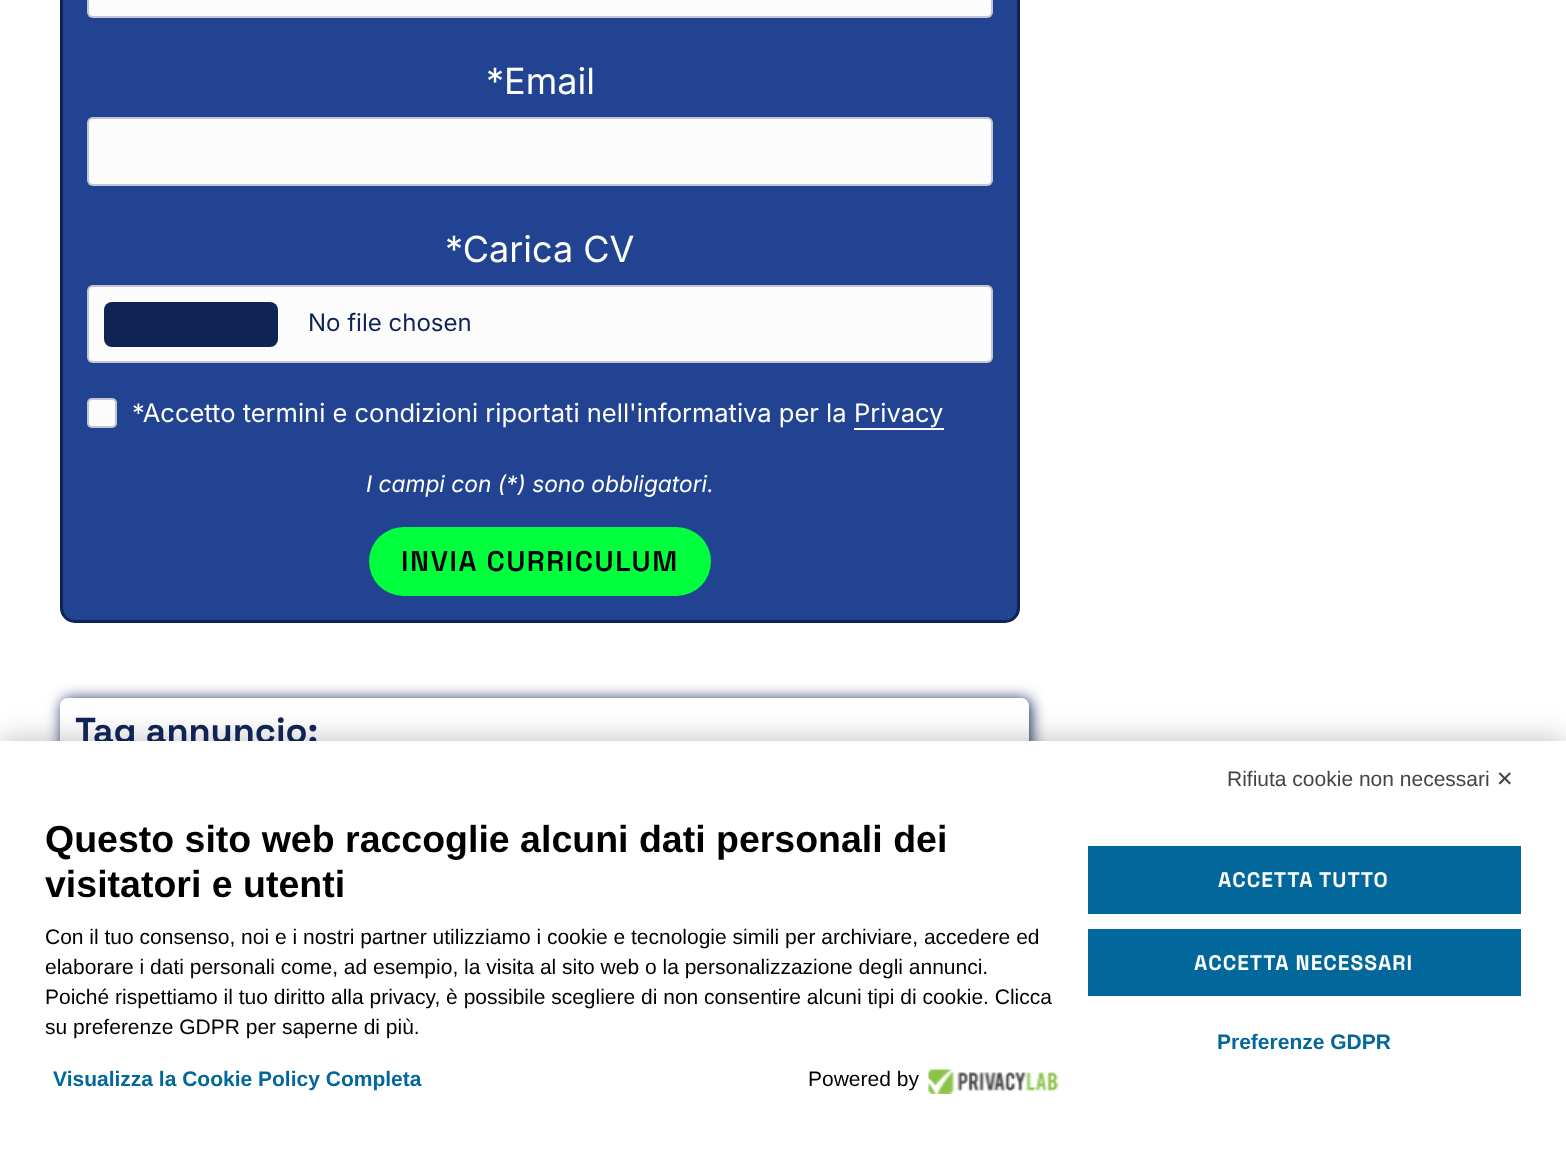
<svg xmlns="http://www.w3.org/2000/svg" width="1566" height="1163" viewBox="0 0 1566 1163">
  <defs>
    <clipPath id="clip1"><path d="M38 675H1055V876H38ZM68 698H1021C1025.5 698 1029 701.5 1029 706V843C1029 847.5 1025.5 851 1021 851H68C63.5 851 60 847.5 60 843V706C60 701.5 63.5 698 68 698Z" clip-rule="evenodd"/></clipPath>
  </defs>
  <rect width="100%" height="100%" fill="#fff"/>
  <rect x="61.5" y="-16.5" width="957" height="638" rx="13.5" fill="#214392" stroke="#0f2355" stroke-width="3"/>
  <rect x="87" y="-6" width="906" height="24" rx="6" fill="#fcfcfc"/>
  <rect x="88" y="-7" width="904" height="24" rx="5" fill="none" stroke="#0f235540" stroke-width="2"/>
  <rect x="87" y="117" width="906" height="69" rx="6" fill="#fcfcfc"/>
  <rect x="88" y="118" width="904" height="67" rx="5" fill="none" stroke="#0f235540" stroke-width="2"/>
  <rect x="87" y="285" width="906" height="78" rx="6" fill="#fcfcfc"/>
  <rect x="88" y="286" width="904" height="76" rx="5" fill="none" stroke="#0f235540" stroke-width="2"/>
  <rect x="104" y="302" width="174" height="45" rx="8" fill="#0f2355"/>
  <rect x="87" y="398" width="30" height="30" rx="5" fill="#fcfcfc"/>
  <rect x="88" y="399" width="28" height="28" rx="4" fill="none" stroke="#0f235540" stroke-width="2"/>
  <path d="M854 428h90v2H854z" fill="#fff"/>
  <rect x="369" y="527" width="342" height="69" rx="34.5" fill="#00ff3c"/>
  <g clip-path="url(#clip1)">
    <rect x="62" y="699" width="969" height="153" rx="8" fill="#0f2355" filter="blur(7.5px)"/>
  </g>
  <path d="M0 741h1566v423H0z" fill="#00000045" filter="blur(15px)"/>
  <g font-family="Inter" font-size="36" fill="#fff">
    <text x="486" y="94">*Email</text>
    <text x="445" y="262">*Carica CV</text>
  </g>
  <text x="308" y="331" font-family="Inter" font-size="24" fill="#0f2355">No file chosen</text>
  <g font-family="Inter" font-size="25.5" fill="#fff">
    <text x="132" y="422">*Accetto termini e condizioni riportati nell'informativa per la</text>
    <text x="854" y="422">Privacy</text>
  </g>
  <text x="366" y="492" font-family="Inter" font-size="22.75" font-style="italic" fill="#fff">I campi con (*) sono obbligatori.</text>
  <text x="401" y="571" font-family="Space Grotesk" font-size="28.5" font-weight="600" letter-spacing="1.5" fill="#000">INVIA CURRICULUM</text>
  <text x="75" y="743" font-family="Space Grotesk" font-size="36" font-weight="bold" fill="#0f2355">Tag annuncio:</text>
  <path d="M0 741h1566v422H0z" fill="#fff"/>
  <text x="1227" y="786" font-family="Liberation Sans" font-size="21" fill="#444">Rifiuta cookie non necessari</text>
  <text x="1496" y="786" font-family="DejaVu Sans" font-size="21" fill="#444">✕</text>
  <g font-family="Liberation Sans" font-size="37.5" font-weight="bold" fill="#000">
    <text x="45" y="852">Questo sito web raccoglie alcuni dati personali dei</text>
    <text x="45" y="897">visitatori e utenti</text>
  </g>
  <g font-family="Liberation Sans" font-size="21" fill="#000">
    <text x="45" y="944">Con il tuo consenso, noi e i nostri partner utilizziamo i cookie e tecnologie simili per archiviare, accedere ed</text>
    <text x="45" y="974">elaborare i dati personali come, ad esempio, la visita al sito web o la personalizzazione degli annunci.</text>
    <text x="45" y="1004">Poiché rispettiamo il tuo diritto alla privacy, è possibile scegliere di non consentire alcuni tipi di cookie. Clicca</text>
    <text x="45" y="1034">su preferenze GDPR per saperne di più.</text>
  </g>
  <text x="53" y="1086" font-family="Liberation Sans" font-size="21" font-weight="bold" fill="#02679a">Visualizza la Cookie Policy Completa</text>
  <text x="808" y="1086" font-family="Liberation Sans" font-size="21" fill="#000">Powered by</text>
  <image x="928" y="1069" width="130" height="25" href="img/1.png"/>
  <path d="M1088 846h433v68H1088z" fill="#02679a"/>
  <text x="1218" y="887" font-family="Space Grotesk" font-size="21" font-weight="bold" letter-spacing="1" fill="#fff">ACCETTA TUTTO</text>
  <path d="M1088 929h433v67H1088z" fill="#02679a"/>
  <text x="1194" y="970" font-family="Space Grotesk" font-size="21" font-weight="bold" letter-spacing="1" fill="#fff">ACCETTA NECESSARI</text>
  <text x="1217" y="1049" font-family="Liberation Sans" font-size="21" font-weight="bold" fill="#02679a">Preferenze GDPR</text>
</svg>
